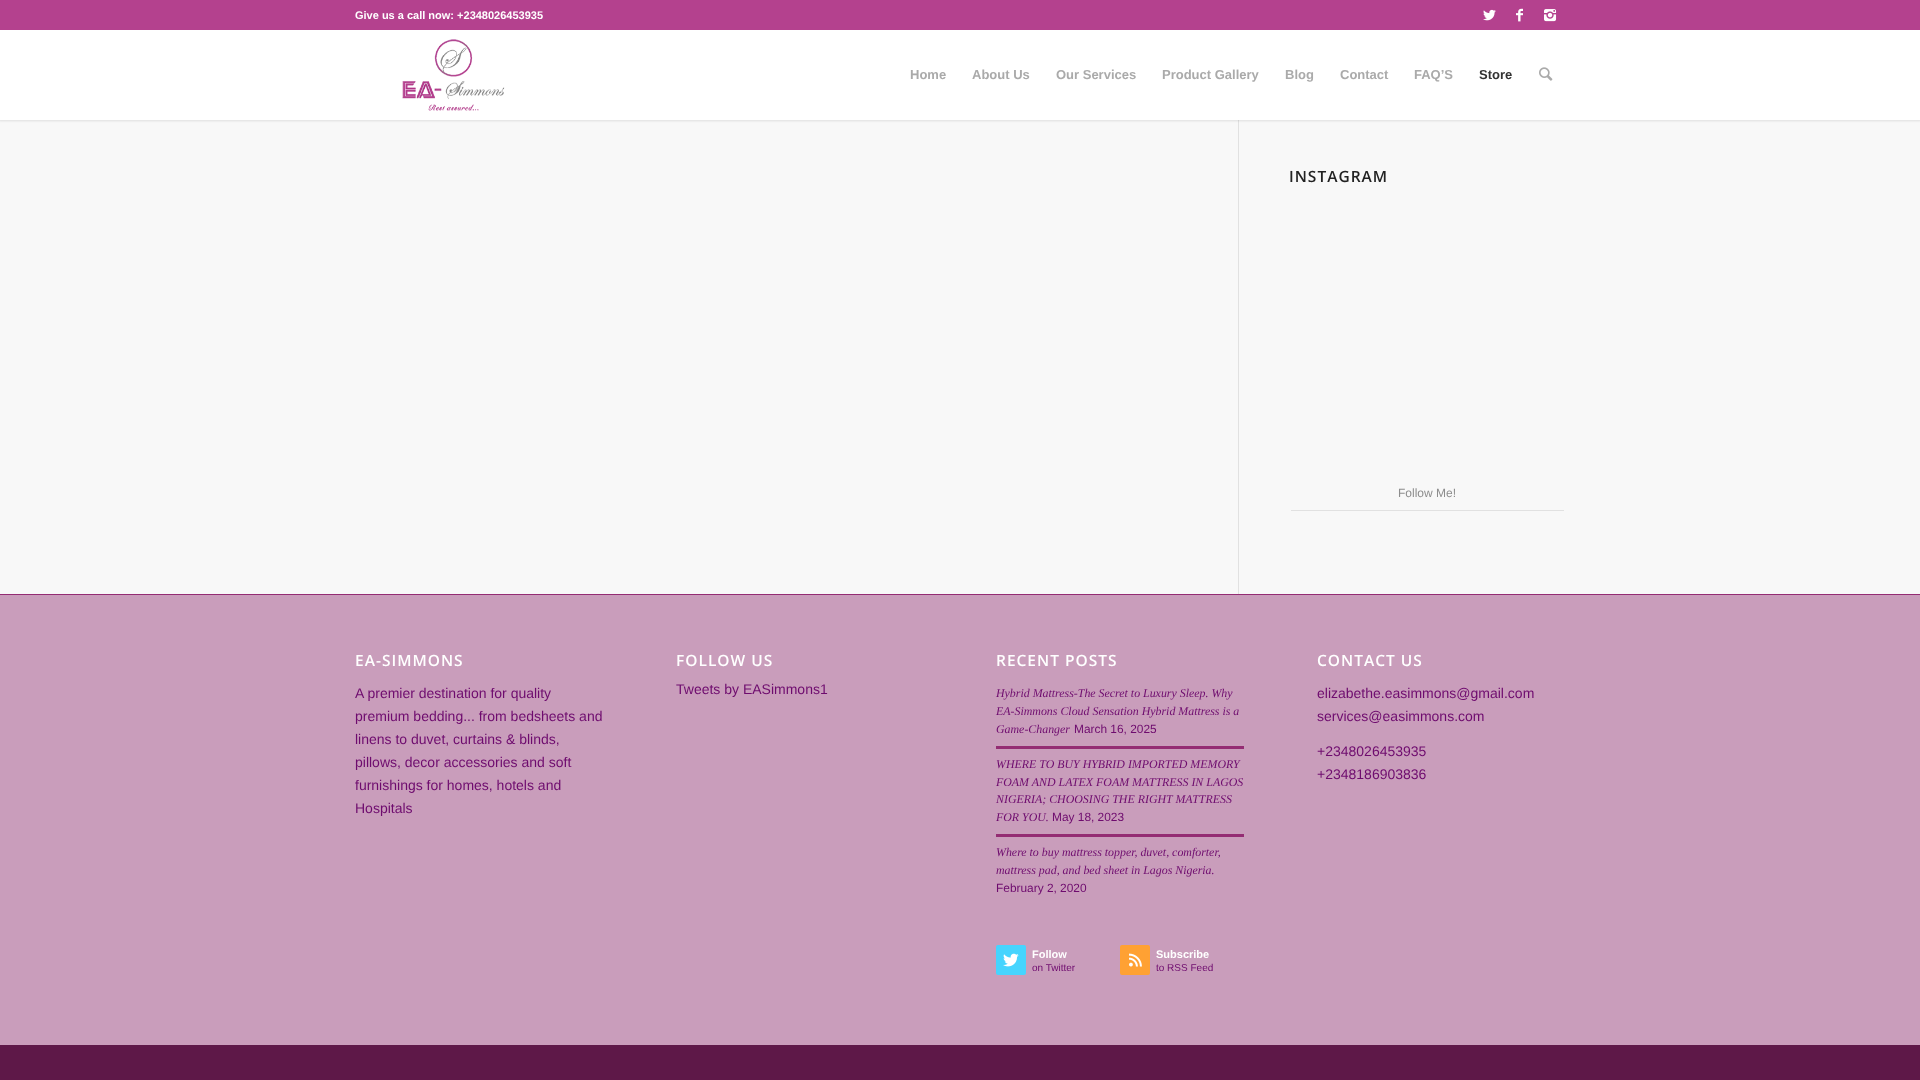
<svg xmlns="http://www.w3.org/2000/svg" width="1920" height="1080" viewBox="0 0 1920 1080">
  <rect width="100%" height="100%" fill="#5e1848"/>
  <path d="M0 120h1920v474H0z" fill="#f8f8f8"/>
  <path d="M1238 119h1v475H1238z" fill="#e1e1e1"/>
  <path d="M-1 -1h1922v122H-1z" fill="#0000001a" filter="blur(1px)"/>
  <path d="M0 0h1920v30H0z" fill="#b4418e"/>
  <image x="1483" y="9" width="13" height="12" href="img/1.png"/>
  <image x="1516" y="8" width="7" height="14" href="img/2.png"/>
  <image x="1544" y="9" width="13" height="13" href="img/3.png"/>
  <path d="M0 30h1920v90H0z" fill="#fff"/>
  <image x="402" y="39" width="103" height="72" href="img/4.png"/>
  <image x="1539" y="67" width="14" height="14" href="img/5.png"/>
  <path d="M1291 510h273v1H1291z" fill="#e1e1e1"/>
  <path d="M0 595h1920v450H0z" fill="#c99dbb"/>
  <path d="M0 594h1920v1H0z" fill="#942c73"/>
  <path d="M996 746h248v3H996z" fill="#942c73"/>
  <path d="M996 834h248v3H996z" fill="#942c73"/>
  <rect x="996" y="945" width="30" height="30" rx="2" fill="#46d4fe"/>
  <image x="1003" y="953" width="16" height="14" href="img/6.png"/>
  <rect x="1120" y="945" width="30" height="30" rx="2" fill="#ffa133"/>
  <image x="1129" y="953" width="13" height="14" href="img/7.png"/>
  <text x="355" y="19" font-family="Liberation Sans" font-size="11" font-weight="bold" fill="#fff">Give us a call now: +2348026453935</text>
  <g font-family="Liberation Sans" font-size="13" font-weight="bold" fill="#aaa">
    <text x="910" y="79">Home</text>
    <text x="972" y="79">About Us</text>
    <text x="1056" y="79">Our Services</text>
    <text x="1162" y="79">Product Gallery</text>
    <text x="1285" y="79">Blog</text>
    <text x="1340" y="79">Contact</text>
    <text x="1414" y="79">FAQ’S</text>
  </g>
  <text x="1479" y="79" font-family="Liberation Sans" font-size="13" font-weight="bold" fill="#333">Store</text>
  <text x="1289" y="182" font-family="Open Sans" font-size="15.5" font-weight="600" letter-spacing="1" fill="#222">INSTAGRAM</text>
  <text x="1398" y="497" font-family="Liberation Sans" font-size="12" fill="#8d8d8d">Follow Me!</text>
  <text x="355" y="666" font-family="Open Sans" font-size="15.5" font-weight="600" letter-spacing="1" fill="#fff">EA-SIMMONS</text>
  <g font-family="Liberation Sans" font-size="14" fill="#6e0b6e">
    <text x="355" y="698">A premier destination for quality</text>
    <text x="355" y="721">premium bedding... from bedsheets and</text>
    <text x="355" y="744">linens to duvet, curtains &amp; blinds,</text>
    <text x="355" y="767">pillows, decor accessories and soft</text>
    <text x="355" y="790">furnishings for homes, hotels and</text>
    <text x="355" y="813">Hospitals</text>
  </g>
  <text x="676" y="666" font-family="Open Sans" font-size="15.5" font-weight="600" letter-spacing="1" fill="#fff">FOLLOW US</text>
  <text x="676" y="694" font-family="Liberation Sans" font-size="14" fill="#6e0b6e">Tweets by EASimmons1</text>
  <text x="996" y="666" font-family="Open Sans" font-size="15.5" font-weight="600" letter-spacing="1" fill="#fff">RECENT POSTS</text>
  <g font-family="Liberation Serif" font-size="11.9" font-style="italic" fill="#6e0b6e">
    <text x="996" y="697">Hybrid Mattress-The Secret to Luxury Sleep. Why</text>
    <text x="996" y="715">EA-Simmons Cloud Sensation Hybrid Mattress is a</text>
    <text x="996" y="733">Game-Changer</text>
  </g>
  <text x="1074" y="733" font-family="Liberation Sans" font-size="11.9" fill="#6e0b6e">March 16, 2025</text>
  <g font-family="Liberation Serif" font-size="11.9" font-style="italic" fill="#6e0b6e">
    <text x="996" y="768">WHERE TO BUY HYBRID IMPORTED MEMORY</text>
    <text x="996" y="786">FOAM AND LATEX FOAM MATTRESS IN LAGOS</text>
    <text x="996" y="803">NIGERIA; CHOOSING THE RIGHT MATTRESS</text>
    <text x="996" y="821">FOR YOU.</text>
  </g>
  <text x="1052" y="821" font-family="Liberation Sans" font-size="11.9" fill="#6e0b6e">May 18, 2023</text>
  <g font-family="Liberation Serif" font-size="11.9" font-style="italic" fill="#6e0b6e">
    <text x="996" y="856">Where to buy mattress topper, duvet, comforter,</text>
    <text x="996" y="874">mattress pad, and bed sheet in Lagos Nigeria.</text>
  </g>
  <text x="996" y="892" font-family="Liberation Sans" font-size="11.9" fill="#6e0b6e">February 2, 2020</text>
  <text x="1032" y="958" font-family="Liberation Sans" font-size="11" font-weight="bold" fill="#fff">Follow</text>
  <text x="1032" y="971" font-family="Liberation Sans" font-size="10" fill="#6e0b6e">on Twitter</text>
  <text x="1156" y="958" font-family="Liberation Sans" font-size="11" font-weight="bold" fill="#fff">Subscribe</text>
  <text x="1156" y="971" font-family="Liberation Sans" font-size="10" fill="#6e0b6e">to RSS Feed</text>
  <text x="1317" y="666" font-family="Open Sans" font-size="15.5" font-weight="600" letter-spacing="1" fill="#fff">CONTACT US</text>
  <g font-family="Liberation Sans" font-size="14" fill="#6e0b6e">
    <text x="1317" y="698">elizabethe.easimmons@gmail.com</text>
    <text x="1317" y="721">services@easimmons.com</text>
    <text x="1317" y="756">+2348026453935</text>
    <text x="1317" y="779">+2348186903836</text>
  </g>
</svg>
